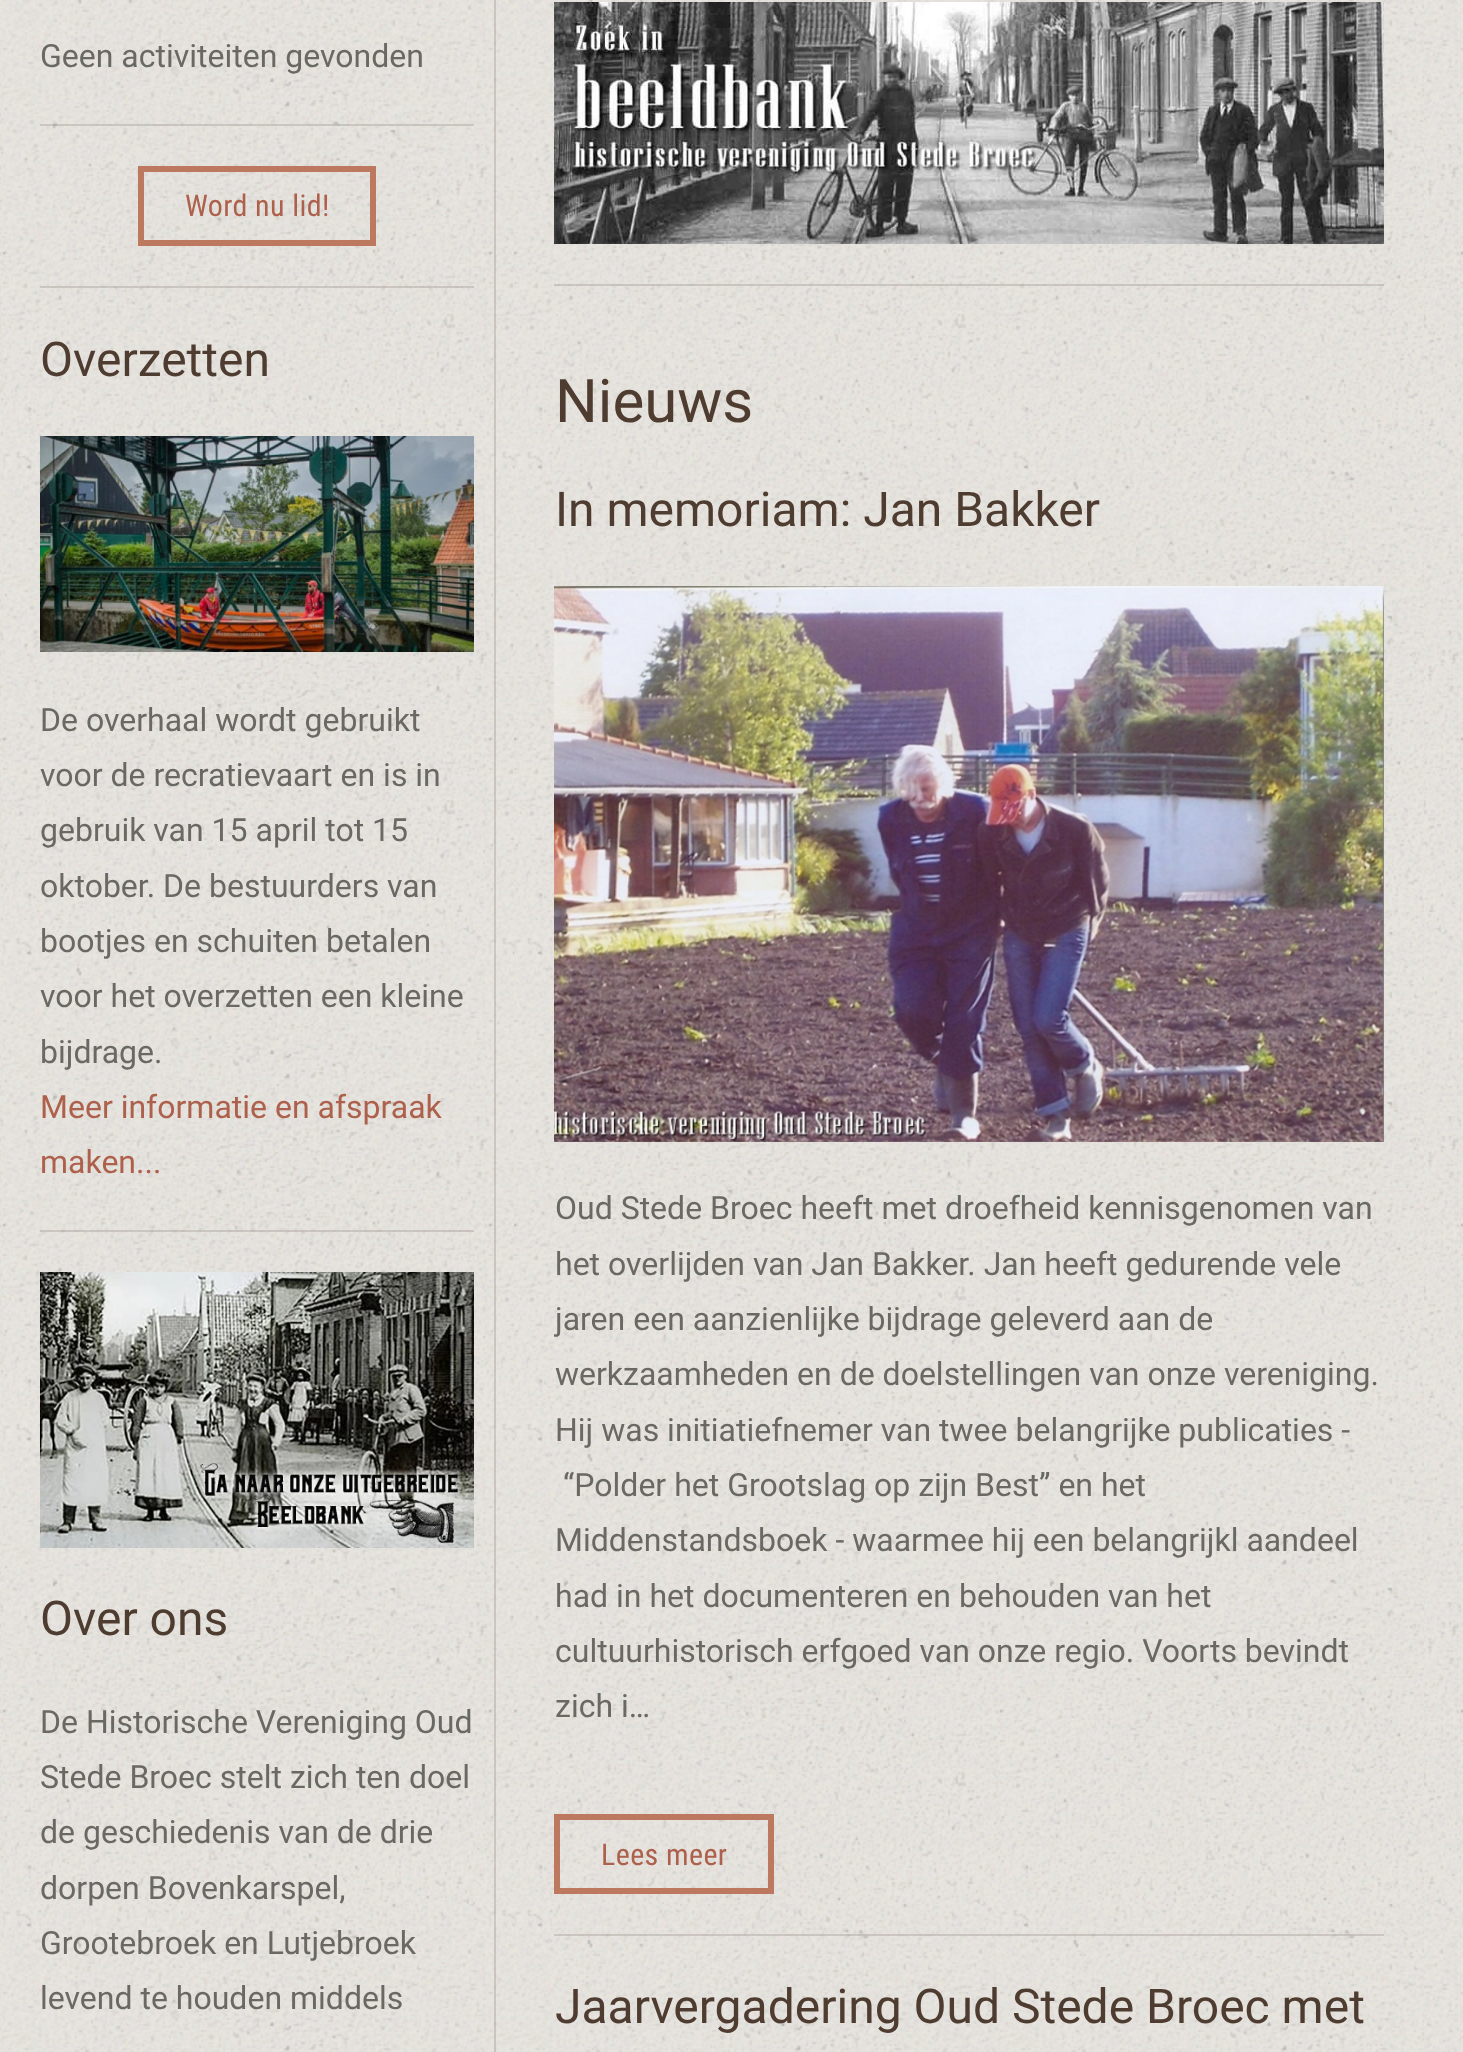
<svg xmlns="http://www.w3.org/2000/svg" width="1463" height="2052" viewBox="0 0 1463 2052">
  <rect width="100%" height="100%" fill="#e9e6e1"/>
  <image x="0" y="0" width="1463" height="2052" href="img/1.png"/>
  <path d="M40 124h434v2H40z" fill="#a1969161"/>
  <path d="M141 169h232v74H141z" fill="none" stroke="#bd7960" stroke-width="6"/>
  <path d="M40 286h434v2H40z" fill="#a1969161"/>
  <image x="40" y="436" width="434" height="216" href="img/2.png"/>
  <path d="M40 1230h434v2H40z" fill="#a1969161"/>
  <image x="40" y="1272" width="434" height="276" href="img/3.png"/>
  <path d="M494 0h2v2052H494z" fill="#a1969161"/>
  <path d="M514 0h910v2052H514z" fill="#e9e6e1"/>
  <image x="514" y="0" width="910" height="2052" href="img/4.png"/>
  <image x="554" y="2" width="830" height="242" href="img/5.png"/>
  <path d="M554 284h830v2H554z" fill="#a1969161"/>
  <image x="554" y="586" width="830" height="556" href="img/6.png"/>
  <path d="M557 1817h214v74H557z" fill="none" stroke="#bd7960" stroke-width="6"/>
  <path d="M554 1934h830v2H554z" fill="#a1969161"/>
  <text x="40" y="67" font-family="Roboto" font-size="32" fill="#696862">Geen activiteiten gevonden</text>
  <text x="185" y="216" font-family="Roboto Condensed" font-size="30" letter-spacing="0.4" fill="#ad604b">Word nu lid!</text>
  <text x="40" y="376" font-family="Roboto" font-size="48" fill="#4f3c30">Overzetten</text>
  <g font-family="Roboto" font-size="32" fill="#696862">
    <text x="40" y="731">De overhaal wordt gebruikt</text>
    <text x="40" y="786">voor de recratievaart en is in</text>
    <text x="40" y="841">gebruik van 15 april tot 15</text>
    <text x="40" y="897">oktober. De bestuurders van</text>
    <text x="40" y="952">bootjes en schuiten betalen</text>
    <text x="40" y="1007">voor het overzetten een kleine</text>
    <text x="40" y="1063">bijdrage.</text>
  </g>
  <g font-family="Roboto" font-size="32" fill="#ad604b">
    <text x="40" y="1118">Meer informatie en afspraak</text>
    <text x="40" y="1173">maken...</text>
  </g>
  <text x="40" y="1635" font-family="Roboto" font-size="48" fill="#4f3c30">Over ons</text>
  <g font-family="Roboto" font-size="32" fill="#696862">
    <text x="40" y="1733">De Historische Vereniging Oud</text>
    <text x="40" y="1788">Stede Broec stelt zich ten doel</text>
    <text x="40" y="1843">de geschiedenis van de drie</text>
    <text x="40" y="1899">dorpen Bovenkarspel,</text>
    <text x="40" y="1954">Grootebroek en Lutjebroek</text>
    <text x="40" y="2009">levend te houden middels</text>
  </g>
  <text x="555" y="422" font-family="Roboto" font-size="60" fill="#4f3c30">Nieuws</text>
  <text x="555" y="526" font-family="Roboto" font-size="48" fill="#4f3c30">In memoriam: Jan Bakker</text>
  <g font-family="Roboto" font-size="32" fill="#696862">
    <text x="555" y="1219">Oud Stede Broec heeft met droefheid kennisgenomen van</text>
    <text x="555" y="1275">het overlijden van Jan Bakker. Jan heeft gedurende vele</text>
    <text x="555" y="1330">jaren een aanzienlijke bijdrage geleverd aan de</text>
    <text x="555" y="1385">werkzaamheden en de doelstellingen van onze vereniging.</text>
    <text x="555" y="1441">Hij was initiatiefnemer van twee belangrijke publicaties -</text>
    <text x="563" y="1496">“Polder het Grootslag op zijn Best” en het</text>
    <text x="555" y="1551">Middenstandsboek - waarmee hij een belangrijkl aandeel</text>
    <text x="555" y="1607">had in het documenteren en behouden van het</text>
    <text x="555" y="1662">cultuurhistorisch erfgoed van onze regio. Voorts bevindt</text>
    <text x="555" y="1717">zich i…</text>
  </g>
  <text x="601" y="1865" font-family="Roboto Condensed" font-size="30" letter-spacing="0.4" fill="#ad604b">Lees meer</text>
  <text x="555" y="2023" font-family="Roboto" font-size="48" fill="#4f3c30">Jaarvergadering Oud Stede Broec met</text>
</svg>
